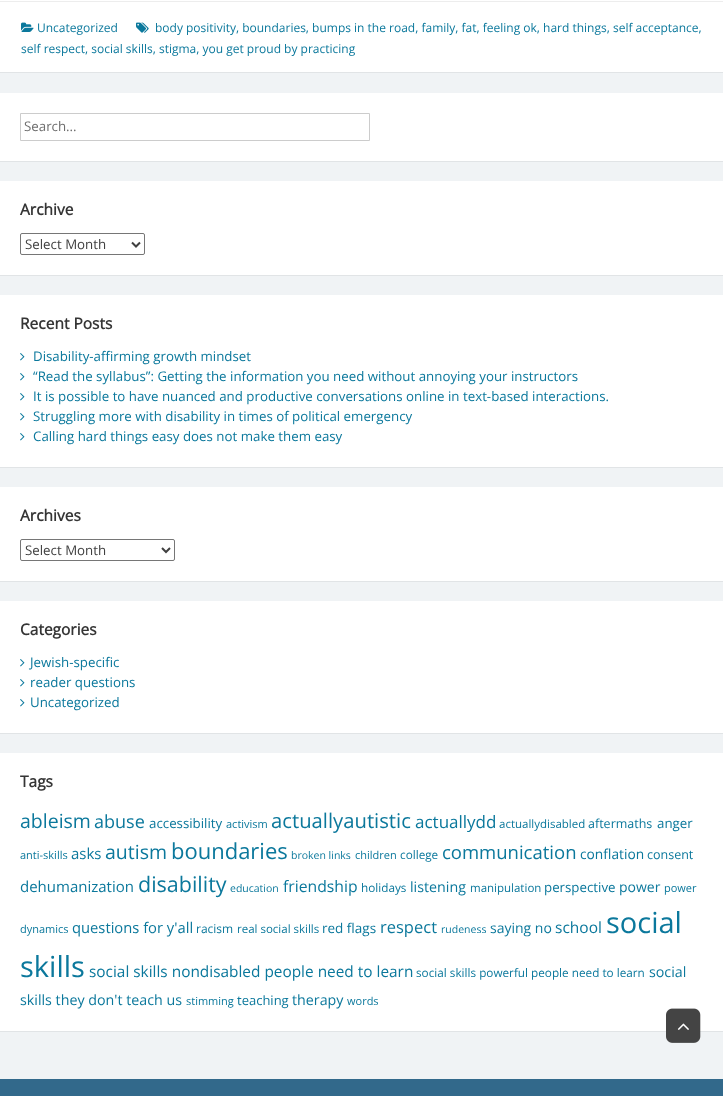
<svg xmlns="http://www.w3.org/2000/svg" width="723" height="1096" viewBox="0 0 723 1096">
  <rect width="100%" height="100%" fill="#f0f3f5"/>
  <path d="M0 -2h723v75H0z" fill="#0000000f" filter="blur(0.5px)"/>
  <path d="M0 0h723v72H0z" fill="#fff"/>
  <path d="M0 1h723v1H0z" fill="#ededed"/>
  <image x="136" y="22" width="13" height="11" href="img/1.png"/>
  <image x="21" y="22" width="13" height="10" href="img/2.png"/>
  <path d="M0 94h723v68H0z" fill="#0000000f" filter="blur(0.5px)"/>
  <path d="M0 93h723v68H0z" fill="#fff"/>
  <path d="M20.5 113.5h349v27H20.5z" fill="none" stroke="#ccc"/>
  <path d="M0 182h723v94H0z" fill="#0000000f" filter="blur(0.5px)"/>
  <path d="M0 181h723v94H0z" fill="#fff"/>
  <rect x="20.5" y="233.5" width="124" height="21" rx="1.5" fill="none" stroke="#767676"/>
  <path d="M132 242.5L136 246.5L140 242.5" fill="none" stroke="#404040" stroke-width="2"/>
  <path d="M0 296h723v172H0z" fill="#0000000f" filter="blur(0.5px)"/>
  <path d="M0 295h723v172H0z" fill="#fff"/>
  <image x="20" y="353" width="5" height="8" href="img/3.png"/>
  <image x="20" y="373" width="5" height="8" href="img/3.png"/>
  <image x="20" y="393" width="5" height="8" href="img/3.png"/>
  <image x="20" y="413" width="5" height="8" href="img/3.png"/>
  <image x="20" y="433" width="5" height="8" href="img/3.png"/>
  <path d="M0 488h723v94H0z" fill="#0000000f" filter="blur(0.5px)"/>
  <path d="M0 487h723v94H0z" fill="#fff"/>
  <rect x="20.5" y="539.5" width="154" height="21" rx="1.5" fill="none" stroke="#767676"/>
  <path d="M162 548L166 552L170 548" fill="none" stroke="#404040" stroke-width="2"/>
  <path d="M0 602h723v132H0z" fill="#0000000f" filter="blur(0.5px)"/>
  <path d="M0 601h723v132H0z" fill="#fff"/>
  <image x="20" y="659" width="5" height="8" href="img/3.png"/>
  <image x="20" y="679" width="5" height="8" href="img/3.png"/>
  <image x="20" y="699" width="5" height="8" href="img/3.png"/>
  <path d="M0 754h723v278H0z" fill="#0000000f" filter="blur(0.5px)"/>
  <path d="M0 753h723v278H0z" fill="#fff"/>
  <path d="M0 1079h723v17H0z" fill="#32698b"/>
  <image x="666" y="1008" width="35" height="35" href="img/4.png"/>
  <image x="677" y="1023" width="12" height="7" href="img/5.png"/>
  <g font-family="Open Sans" font-size="12" fill="#0b789c">
    <text x="155" y="32">body positivity, boundaries, bumps in the road, family, fat, feeling ok, hard things, self acceptance,</text>
    <text x="21" y="53">self respect, social skills, stigma, you get proud by practicing</text>
    <text x="37" y="32">Uncategorized</text>
  </g>
  <text x="24" y="131" font-family="Open Sans" font-size="13.3" fill="#6e6e6e">Search...</text>
  <text x="20" y="215" font-family="Open Sans" font-size="15.5" font-weight="bold" fill="#353535">Archive</text>
  <text x="25" y="249" font-family="Open Sans" font-size="13.3" fill="#404040">Select Month</text>
  <text x="20" y="329" font-family="Open Sans" font-size="15.5" font-weight="bold" fill="#353535">Recent Posts</text>
  <g font-family="Open Sans" font-size="13.3" fill="#0b789c">
    <text x="33" y="361">Disability-affirming growth mindset</text>
    <text x="33" y="381">“Read the syllabus”: Getting the information you need without annoying your instructors</text>
    <text x="33" y="401">It is possible to have nuanced and productive conversations online in text-based interactions.</text>
    <text x="33" y="421">Struggling more with disability in times of political emergency</text>
    <text x="33" y="441">Calling hard things easy does not make them easy</text>
  </g>
  <text x="20" y="521" font-family="Open Sans" font-size="15.5" font-weight="bold" fill="#353535">Archives</text>
  <text x="25" y="555" font-family="Open Sans" font-size="13.3" fill="#404040">Select Month</text>
  <text x="20" y="635" font-family="Open Sans" font-size="15.5" font-weight="bold" fill="#353535">Categories</text>
  <g font-family="Open Sans" font-size="13.3" fill="#0b789c">
    <text x="30" y="667">Jewish-specific</text>
    <text x="30" y="687">reader questions</text>
    <text x="30" y="707">Uncategorized</text>
  </g>
  <text x="20" y="787" font-family="Open Sans" font-size="15.5" font-weight="bold" fill="#353535">Tags</text>
  <text x="20" y="828" font-family="Open Sans" font-size="19.5" fill="#0b789c">ableism</text>
  <text x="94" y="828" font-family="Open Sans" font-size="18" fill="#0b789c">abuse</text>
  <text x="149" y="828" font-family="Open Sans" font-size="13.3" fill="#0b789c">accessibility</text>
  <text x="226" y="828" font-family="Open Sans" font-size="11" fill="#0b789c">activism</text>
  <text x="271" y="828" font-family="Open Sans" font-size="20.25" fill="#0b789c">actuallyautistic</text>
  <text x="415" y="828" font-family="Open Sans" font-size="17" fill="#0b789c">actuallydd</text>
  <text x="499" y="828" font-family="Open Sans" font-size="11.5" fill="#0b789c">actuallydisabled</text>
  <text x="588" y="828" font-family="Open Sans" font-size="12.5" fill="#0b789c">aftermaths</text>
  <text x="657" y="828" font-family="Open Sans" font-size="13.3" fill="#0b789c">anger</text>
  <text x="20" y="859" font-family="Open Sans" font-size="11" fill="#0b789c">anti-skills</text>
  <text x="71" y="859" font-family="Open Sans" font-size="15" fill="#0b789c">asks</text>
  <text x="105" y="859" font-family="Open Sans" font-size="19.5" fill="#0b789c">autism</text>
  <text x="171" y="859" font-family="Open Sans" font-size="22" fill="#0b789c">boundaries</text>
  <text x="291" y="859" font-family="Open Sans" font-size="10.5" fill="#0b789c">broken links</text>
  <text x="355" y="859" font-family="Open Sans" font-size="11" fill="#0b789c">children</text>
  <text x="400" y="859" font-family="Open Sans" font-size="11.75" fill="#0b789c">college</text>
  <text x="442" y="859" font-family="Open Sans" font-size="18.5" fill="#0b789c">communication</text>
  <text x="580" y="859" font-family="Open Sans" font-size="13.75" fill="#0b789c">conflation</text>
  <text x="647" y="859" font-family="Open Sans" font-size="12.5" fill="#0b789c">consent</text>
  <text x="20" y="892" font-family="Open Sans" font-size="15" fill="#0b789c">dehumanization</text>
  <text x="138" y="892" font-family="Open Sans" font-size="21.5" fill="#0b789c">disability</text>
  <text x="230" y="892" font-family="Open Sans" font-size="10.5" fill="#0b789c">education</text>
  <text x="283" y="892" font-family="Open Sans" font-size="15.75" fill="#0b789c">friendship</text>
  <text x="361" y="892" font-family="Open Sans" font-size="11.75" fill="#0b789c">holidays</text>
  <text x="410" y="892" font-family="Open Sans" font-size="14.25" fill="#0b789c">listening</text>
  <text x="470" y="892" font-family="Open Sans" font-size="11.5" fill="#0b789c">manipulation</text>
  <text x="544" y="892" font-family="Open Sans" font-size="13.3" fill="#0b789c">perspective</text>
  <text x="619" y="892" font-family="Open Sans" font-size="14" fill="#0b789c">power</text>
  <g font-family="Open Sans" font-size="11" fill="#0b789c">
    <text x="664" y="892">power</text>
    <text x="20" y="933">dynamics</text>
  </g>
  <text x="72" y="933" font-family="Open Sans" font-size="14.75" fill="#0b789c">questions for y'all</text>
  <text x="196" y="933" font-family="Open Sans" font-size="12" fill="#0b789c">racism</text>
  <text x="237" y="933" font-family="Open Sans" font-size="11.5" fill="#0b789c">real social skills</text>
  <text x="322" y="933" font-family="Open Sans" font-size="13.5" fill="#0b789c">red flags</text>
  <text x="380" y="933" font-family="Open Sans" font-size="16.5" fill="#0b789c">respect</text>
  <text x="441" y="933" font-family="Open Sans" font-size="10.5" fill="#0b789c">rudeness</text>
  <text x="490" y="933" font-family="Open Sans" font-size="14" fill="#0b789c">saying no</text>
  <text x="555" y="933" font-family="Open Sans" font-size="15.5" fill="#0b789c">school</text>
  <g font-family="Open Sans" font-size="29" fill="#0b789c">
    <text x="606" y="933">social</text>
    <text x="20" y="977">skills</text>
  </g>
  <text x="89" y="977" font-family="Open Sans" font-size="15.4" fill="#0b789c">social skills nondisabled people need to learn</text>
  <text x="416" y="977" font-family="Open Sans" font-size="11.75" fill="#0b789c">social skills powerful people need to learn</text>
  <g font-family="Open Sans" font-size="14.25" fill="#0b789c">
    <text x="649" y="977">social</text>
    <text x="20" y="1005">skills they don't teach us</text>
  </g>
  <text x="186" y="1005" font-family="Open Sans" font-size="11" fill="#0b789c">stimming</text>
  <text x="237" y="1005" font-family="Open Sans" font-size="13" fill="#0b789c">teaching</text>
  <text x="292" y="1005" font-family="Open Sans" font-size="14.25" fill="#0b789c">therapy</text>
  <text x="347" y="1005" font-family="Open Sans" font-size="11" fill="#0b789c">words</text>
</svg>
